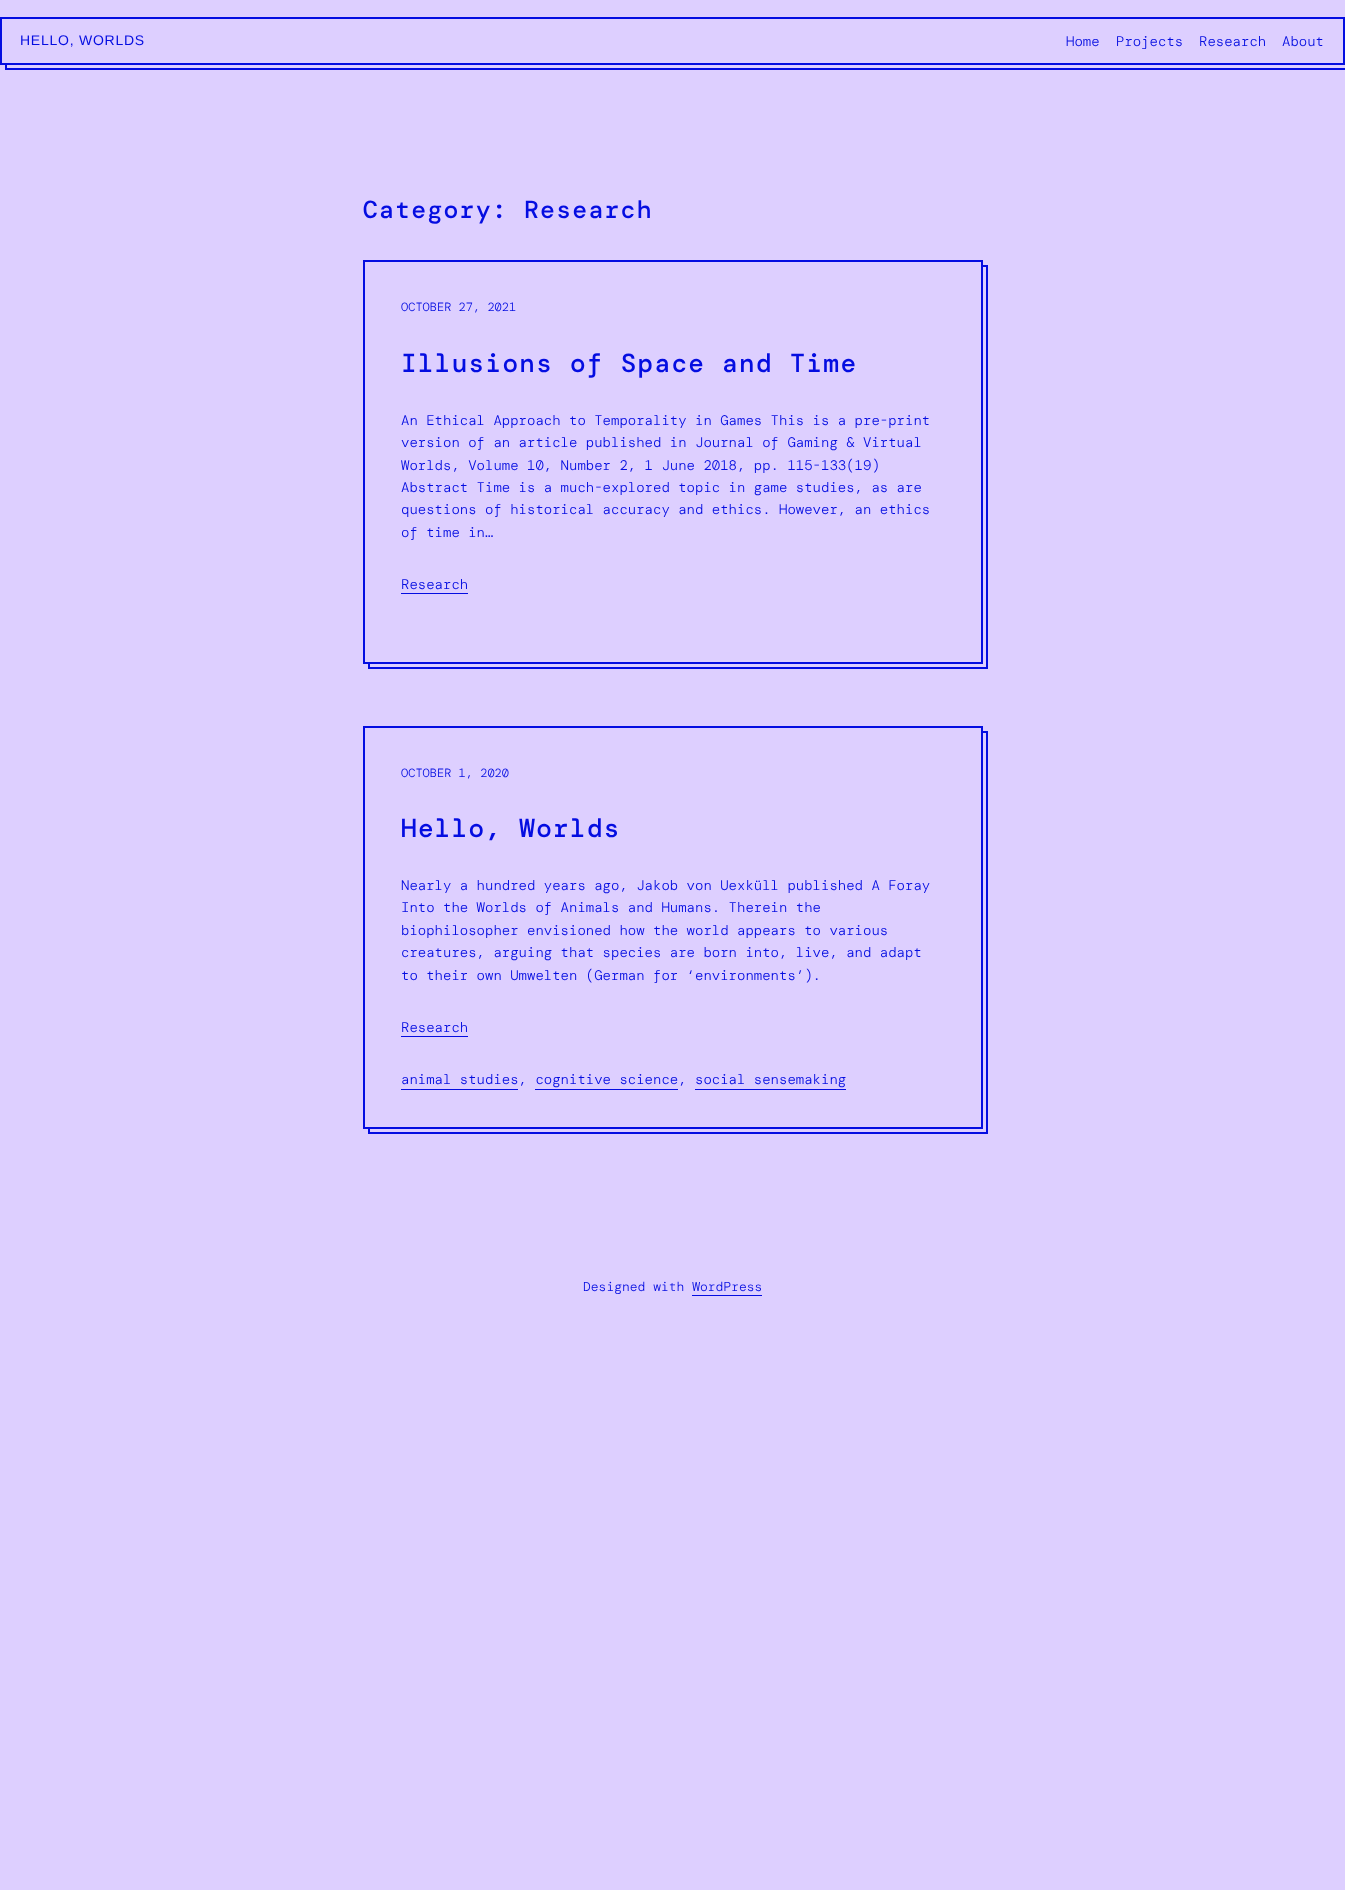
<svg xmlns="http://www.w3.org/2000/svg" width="1345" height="1890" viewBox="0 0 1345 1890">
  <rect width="100%" height="100%" fill="#ddcfff"/>
  <path d="M5 65V70H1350V22H1345V65Z" fill="#040de1"/>
  <path d="M7 65V68H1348V24H1345V65Z" fill="#ddcfff"/>
  <path d="M1 18h1343v46H1z" fill="none" stroke="#040de1" stroke-width="2"/>
  <path d="M368 664V669H988V265H983V664Z" fill="#040de1"/>
  <path d="M370 664V667H986V267H983V664Z" fill="#ddcfff"/>
  <path d="M364 261h618v402H364z" fill="none" stroke="#040de1" stroke-width="2"/>
  <path d="M401 593h67v1H401z" fill="#040de1"/>
  <path d="M368 1129V1134H988V731H983V1129Z" fill="#040de1"/>
  <path d="M370 1129V1132H986V733H983V1129Z" fill="#ddcfff"/>
  <path d="M364 727h618v401H364z" fill="none" stroke="#040de1" stroke-width="2"/>
  <path d="M401 1036h67v1H401z" fill="#040de1"/>
  <path d="M401 1089h117v1H401z" fill="#040de1"/>
  <path d="M535 1089h143v1H535z" fill="#040de1"/>
  <path d="M695 1089h151v1H695z" fill="#040de1"/>
  <path d="M692 1295h70v1H692z" fill="#040de1"/>
  <text x="20" y="45" font-family="Liberation Sans" font-size="14" letter-spacing="0.75" fill="#040de1">HELLO, WORLDS</text>
  <g font-family="DM Mono" font-size="14" font-weight="300" fill="#040de1">
    <text x="1066" y="46">Home</text>
    <text x="1116" y="46">Projects</text>
    <text x="1199" y="46">Research</text>
    <text x="1282" y="46">About</text>
  </g>
  <text x="363" y="218" font-family="DM Mono" font-size="24.75" font-weight="500" letter-spacing="1.25" fill="#040de1">Category: Research</text>
  <text x="401" y="311" font-family="DM Mono" font-size="12" font-weight="300" fill="#040de1">OCTOBER 27, 2021</text>
  <text x="401" y="372" font-family="DM Mono" font-size="26" font-weight="500" letter-spacing="1.3" fill="#040de1">Illusions of Space and Time</text>
  <g font-family="DM Mono" font-size="14" font-weight="300" fill="#040de1">
    <text x="401" y="425">An Ethical Approach to Temporality in Games This is a pre-print</text>
    <text x="401" y="447">version of an article published in Journal of Gaming &amp; Virtual</text>
    <text x="401" y="470">Worlds, Volume 10, Number 2, 1 June 2018, pp. 115-133(19)</text>
    <text x="401" y="492">Abstract Time is a much-explored topic in game studies, as are</text>
    <text x="401" y="514">questions of historical accuracy and ethics. However, an ethics</text>
    <text x="401" y="537">of time in…</text>
    <text x="401" y="589">Research</text>
  </g>
  <text x="401" y="777" font-family="DM Mono" font-size="12" font-weight="300" fill="#040de1">OCTOBER 1, 2020</text>
  <text x="401" y="837" font-family="DM Mono" font-size="26" font-weight="500" letter-spacing="1.3" fill="#040de1">Hello, Worlds</text>
  <g font-family="DM Mono" font-size="14" font-weight="300" fill="#040de1">
    <text x="401" y="890">Nearly a hundred years ago, Jakob von Uexküll published A Foray</text>
    <text x="401" y="912">Into the Worlds of Animals and Humans. Therein the</text>
    <text x="401" y="935">biophilosopher envisioned how the world appears to various</text>
    <text x="401" y="957">creatures, arguing that species are born into, live, and adapt</text>
    <text x="401" y="980">to their own Umwelten (German for ‘environments’).</text>
    <text x="401" y="1032">Research</text>
    <text x="401" y="1084">animal studies, cognitive science, social sensemaking</text>
  </g>
  <text x="583" y="1291" font-family="DM Mono" font-size="13" font-weight="300" fill="#040de1">Designed with WordPress</text>
</svg>
